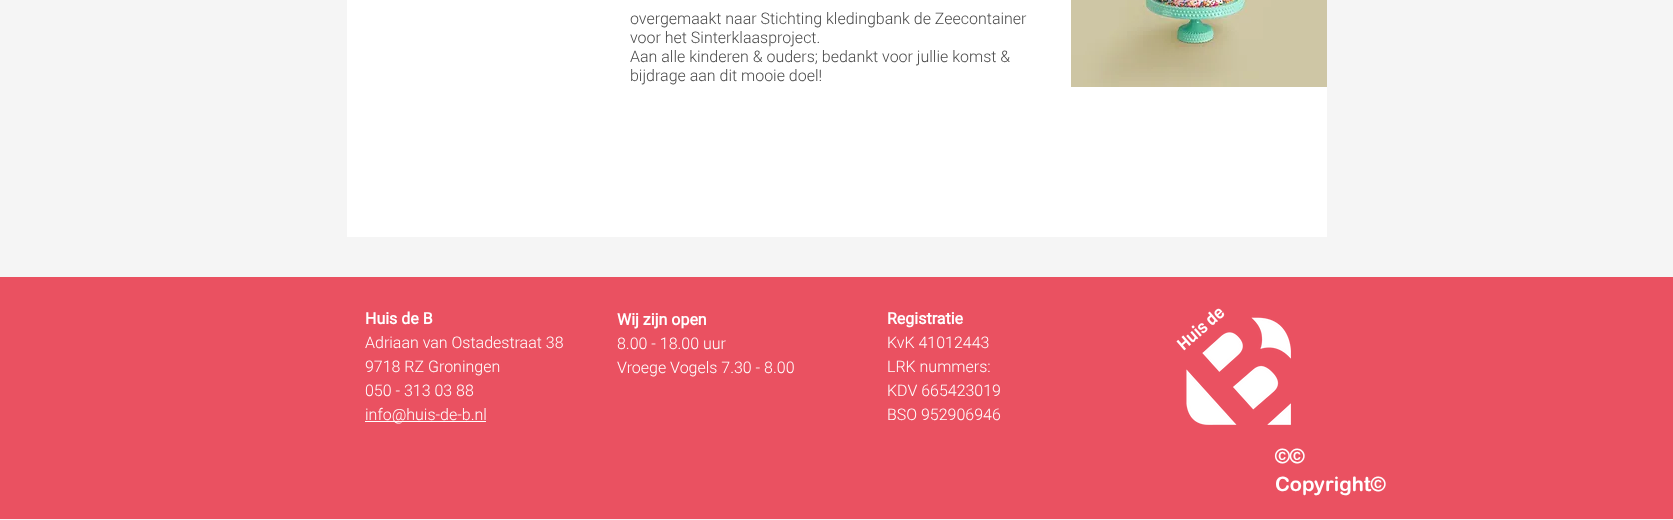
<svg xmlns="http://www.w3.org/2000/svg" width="1673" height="520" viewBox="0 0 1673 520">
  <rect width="100%" height="100%" fill="#f5f5f5"/>
  <path d="M347 0h980v237H347z" fill="#fff"/>
  <image x="1071" y="0" width="256" height="87" href="img/1.png"/>
  <path d="M0 277h1673v242H0z" fill="#ea5161"/>
  <path d="M365 421h121v1H365z" fill="#fff"/>
  <image x="1176" y="308" width="115" height="117" href="img/2.png"/>
  <g font-family="Roboto" font-size="16" font-weight="300" fill="#4a4a4a">
    <text x="630" y="24">overgemaakt naar Stichting kledingbank de Zeecontainer</text>
    <text x="630" y="43">voor het Sinterklaasproject.</text>
    <text x="630" y="62">Aan alle kinderen &amp; ouders; bedankt voor jullie komst &amp;</text>
    <text x="630" y="81">bijdrage aan dit mooie doel!</text>
  </g>
  <text x="365" y="324" font-family="Roboto" font-size="16" font-weight="bold" fill="#fff">Huis de B</text>
  <g font-family="Roboto" font-size="16" font-weight="300" fill="#fff">
    <text x="365" y="348">Adriaan van Ostadestraat 38</text>
    <text x="365" y="372">9718 RZ Groningen</text>
    <text x="365" y="396">050 - 313 03 88</text>
    <text x="365" y="420">info@huis-de-b.nl</text>
  </g>
  <text x="617" y="325" font-family="Roboto" font-size="16" font-weight="bold" fill="#fff">Wij zijn open</text>
  <g font-family="Roboto" font-size="16" font-weight="300" fill="#fff">
    <text x="617" y="349">8.00 - 18.00 uur</text>
    <text x="617" y="373">Vroege Vogels 7.30 - 8.00</text>
  </g>
  <text x="887" y="324" font-family="Roboto" font-size="16" font-weight="bold" fill="#fff">Registratie</text>
  <g font-family="Roboto" font-size="16" font-weight="300" fill="#fff">
    <text x="887" y="348">KvK 41012443</text>
    <text x="887" y="372">LRK nummers:</text>
    <text x="887" y="396">KDV 665423019</text>
    <text x="887" y="420">BSO 952906946</text>
  </g>
  <g font-family="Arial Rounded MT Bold" font-size="20" font-weight="bold" fill="#fff">
    <text x="1275" y="463">©©</text>
    <text x="1275" y="491">Copyright©</text>
  </g>
</svg>
